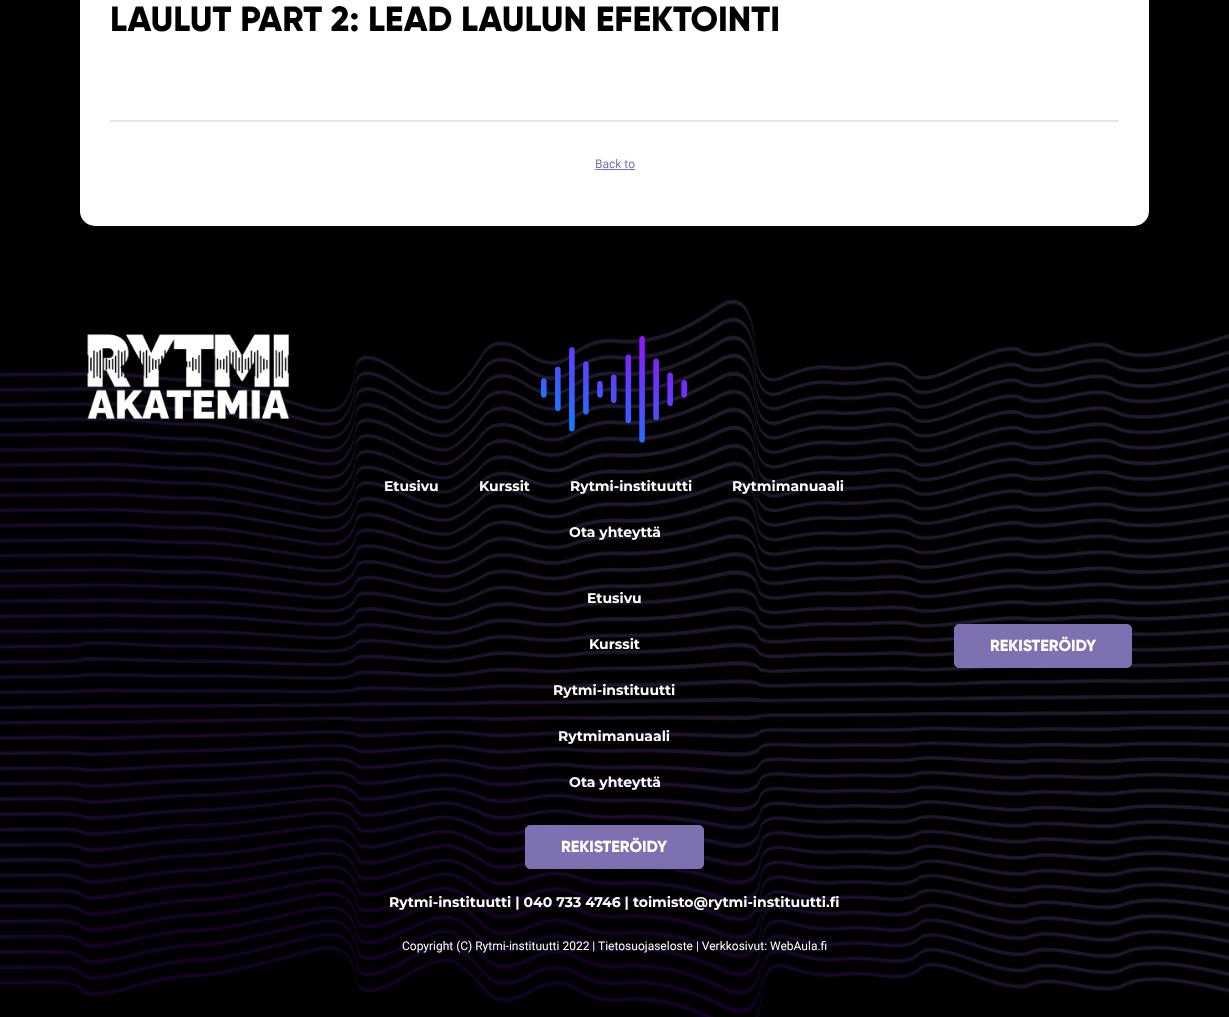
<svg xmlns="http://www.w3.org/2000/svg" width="1229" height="1017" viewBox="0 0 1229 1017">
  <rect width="100%" height="100%" fill="#000"/>
  <rect x="80" y="-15" width="1069" height="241" rx="15" fill="#fff"/>
  <path d="M110 120h1009v2H110z" fill="#e2e7ed"/>
  <path d="M595 169h40v1H595z" fill="#7e71b1"/>
  <image x="0" y="299" width="1229" height="718" href="img/1.png"/>
  <image x="87" y="334" width="202" height="86" href="img/2.png"/>
  <image x="541" y="336" width="146" height="107" href="img/3.png"/>
  <rect x="525.5" y="825.5" width="178" height="43" rx="4.5" fill="#7e71b1" stroke="#7e71b1"/>
  <rect x="954.5" y="624.5" width="177" height="43" rx="4.5" fill="#7e71b1" stroke="#7e71b1"/>
  <text x="110" y="31" font-family="Gilroy" font-size="35" font-weight="800" fill="#000">LAULUT PART 2: LEAD LAULUN EFEKTOINTI</text>
  <text x="595" y="168" font-family="Roboto" font-size="12" fill="#7e71b1">Back to</text>
  <g font-family="Montserrat" font-size="14" font-weight="bold" fill="#fff">
    <text x="384" y="491">Etusivu</text>
    <text x="479" y="491">Kurssit</text>
    <text x="570" y="491">Rytmi-instituutti</text>
    <text x="732" y="491">Rytmimanuaali</text>
    <text x="569" y="537">Ota yhteyttä</text>
    <text x="587" y="603">Etusivu</text>
    <text x="589" y="649">Kurssit</text>
    <text x="553" y="695">Rytmi-instituutti</text>
    <text x="558" y="741">Rytmimanuaali</text>
    <text x="569" y="787">Ota yhteyttä</text>
  </g>
  <text x="561" y="852" font-family="Gilroy" font-size="16" font-weight="800" fill="#fff">REKISTERÖIDY</text>
  <text x="389" y="907" font-family="Montserrat" font-size="14" font-weight="bold" fill="#fff">Rytmi-instituutti | 040 733 4746 | toimisto@rytmi-instituutti.fi</text>
  <text x="402" y="950" font-family="Roboto" font-size="12" fill="#fff">Copyright (C) Rytmi-instituutti 2022 | Tietosuojaseloste | Verkkosivut: WebAula.fi</text>
  <text x="990" y="651" font-family="Gilroy" font-size="16" font-weight="800" fill="#fff">REKISTERÖIDY</text>
</svg>
